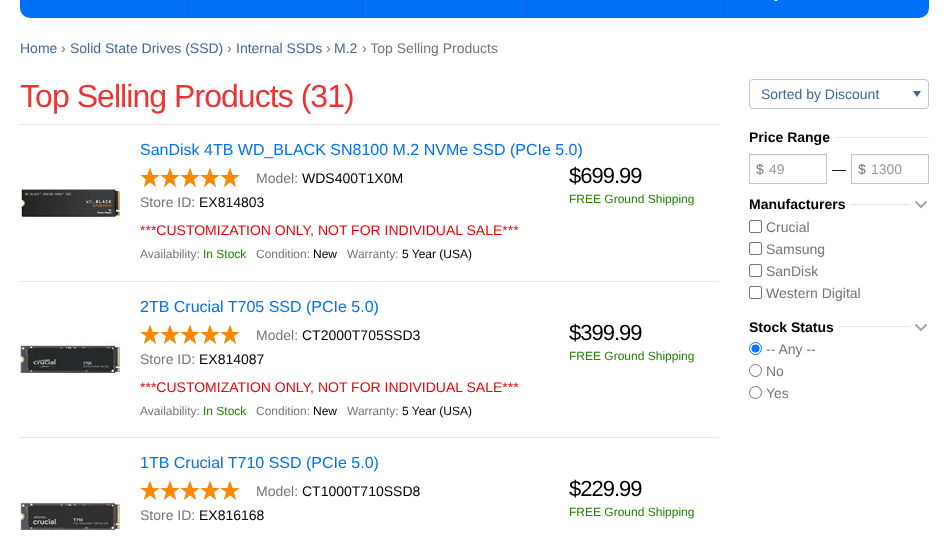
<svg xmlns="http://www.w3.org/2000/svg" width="949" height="541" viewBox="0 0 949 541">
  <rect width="100%" height="100%" fill="#fff"/>
  <rect x="21" y="-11" width="907" height="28" rx="9" fill="#0070f7" stroke="#0070f7" stroke-width="2"/>
  <path d="M187 0h1v16H187z" fill="#0065de"/>
  <path d="M362 0h1v16H362z" fill="#0065de"/>
  <path d="M526 0h1v16H526z" fill="#0065de"/>
  <path d="M723 0h1v16H723z" fill="#0065de"/>
  <image x="774" y="0" width="4" height="1" href="img/1.png"/>
  <path d="M20 124h699v1H20z" fill="#e6e6e9"/>
  <path d="M20 281h699v1H20z" fill="#e6e6e9"/>
  <image x="20" y="185" width="100" height="32" href="img/2.png"/>
  <image x="140" y="168" width="100" height="19" href="img/3.png"/>
  <image x="140" y="168" width="100" height="19" href="img/4.png"/>
  <path d="M20 437h699v1H20z" fill="#e6e6e9"/>
  <image x="20" y="341" width="100" height="32" href="img/5.png"/>
  <image x="140" y="325" width="100" height="19" href="img/3.png"/>
  <image x="140" y="325" width="100" height="19" href="img/4.png"/>
  <image x="20" y="498" width="100" height="33" href="img/6.png"/>
  <image x="140" y="481" width="100" height="19" href="img/3.png"/>
  <image x="140" y="481" width="100" height="19" href="img/4.png"/>
  <rect x="749.5" y="79.5" width="179" height="29" rx="3.5" fill="none" stroke="#c0c6cc"/>
  <path d="M913 91H921L917 97Z" fill="#469"/>
  <path d="M835 137h94v1H835z" fill="#e6e6e9"/>
  <path d="M750 155h76v1H750z" fill="#f7f7f7"/>
  <path d="M749 154h78v1H749z" fill="#c0c6cc"/>
  <path d="M826 154h1v30H826z" fill="#c0c6cc"/>
  <path d="M749 183h78v1H749z" fill="#c0c6cc"/>
  <path d="M749 154h1v30H749z" fill="#c0c6cc"/>
  <path d="M852 155h76v1H852z" fill="#f7f7f7"/>
  <path d="M851 154h78v1H851z" fill="#c0c6cc"/>
  <path d="M928 154h1v30H928z" fill="#c0c6cc"/>
  <path d="M851 183h78v1H851z" fill="#c0c6cc"/>
  <path d="M851 154h1v30H851z" fill="#c0c6cc"/>
  <path d="M850 204h60v1H850z" fill="#e6e6e9"/>
  <image x="915" y="201" width="12" height="8" href="img/7.png"/>
  <rect x="749.5" y="220.5" width="12" height="12" rx="1.5" fill="none" stroke="#767676"/>
  <rect x="749.5" y="242.5" width="12" height="12" rx="1.5" fill="none" stroke="#767676"/>
  <rect x="749.5" y="264.5" width="12" height="12" rx="1.5" fill="none" stroke="#767676"/>
  <rect x="749.5" y="286.5" width="12" height="12" rx="1.5" fill="none" stroke="#767676"/>
  <path d="M839 326h71v1H839z" fill="#e6e6e9"/>
  <image x="915" y="324" width="12" height="8" href="img/7.png"/>
  <circle cx="755.5" cy="348.5" r="6" fill="none" stroke="#0075ff"/>
  <circle cx="755.5" cy="348.5" r="4" fill="#0075ff"/>
  <circle cx="755.5" cy="370.5" r="6" fill="none" stroke="#767676"/>
  <circle cx="755.5" cy="392.5" r="6" fill="none" stroke="#767676"/>
  <text x="20" y="53" font-family="Liberation Sans" font-size="14" fill="#469">Home</text>
  <text x="61" y="53" font-family="Liberation Sans" font-size="14" fill="#757575">›</text>
  <text x="70" y="53" font-family="Liberation Sans" font-size="14" fill="#469">Solid State Drives (SSD)</text>
  <text x="227" y="53" font-family="Liberation Sans" font-size="14" fill="#757575">›</text>
  <text x="236" y="53" font-family="Liberation Sans" font-size="14" fill="#469">Internal SSDs</text>
  <text x="326" y="53" font-family="Liberation Sans" font-size="14" fill="#757575">›</text>
  <text x="334" y="53" font-family="Liberation Sans" font-size="14" fill="#469">M.2</text>
  <text x="362" y="53" font-family="Liberation Sans" font-size="14" fill="#757575">› Top Selling Products</text>
  <text x="20" y="107" font-family="Liberation Sans" font-size="32" letter-spacing="-0.95" fill="#e33">Top Selling Products (31)</text>
  <text x="140" y="155" font-family="Liberation Sans" font-size="16" fill="#0070f7">SanDisk 4TB WD_BLACK SN8100 M.2 NVMe SSD (PCIe 5.0)</text>
  <text x="256" y="183" font-family="Liberation Sans" font-size="14" fill="#757575">Model:</text>
  <text x="302" y="183" font-family="Liberation Sans" font-size="14" fill="#000">WDS400T1X0M</text>
  <text x="140" y="207" font-family="Liberation Sans" font-size="14" fill="#757575">Store ID:</text>
  <text x="199" y="207" font-family="Liberation Sans" font-size="14" fill="#000">EX814803</text>
  <text x="140" y="235" font-family="Liberation Sans" font-size="14" fill="#e00">***CUSTOMIZATION ONLY, NOT FOR INDIVIDUAL SALE***</text>
  <text x="140" y="258" font-family="Liberation Sans" font-size="12" fill="#757575">Availability:</text>
  <text x="203" y="258" font-family="Liberation Sans" font-size="12" fill="#208000">In Stock</text>
  <text x="256" y="258" font-family="Liberation Sans" font-size="12" fill="#757575">Condition:</text>
  <text x="313" y="258" font-family="Liberation Sans" font-size="12" fill="#000">New</text>
  <text x="347" y="258" font-family="Liberation Sans" font-size="12" fill="#757575">Warranty:</text>
  <text x="402" y="258" font-family="Liberation Sans" font-size="12" fill="#000">5 Year (USA)</text>
  <text x="569" y="183" font-family="Liberation Sans" font-size="22" letter-spacing="-1" fill="#000">$699.99</text>
  <text x="569" y="203" font-family="Liberation Sans" font-size="12" fill="#208000">FREE Ground Shipping</text>
  <text x="140" y="312" font-family="Liberation Sans" font-size="16" fill="#0070f7">2TB Crucial T705 SSD (PCIe 5.0)</text>
  <text x="256" y="340" font-family="Liberation Sans" font-size="14" fill="#757575">Model:</text>
  <text x="302" y="340" font-family="Liberation Sans" font-size="14" fill="#000">CT2000T705SSD3</text>
  <text x="140" y="364" font-family="Liberation Sans" font-size="14" fill="#757575">Store ID:</text>
  <text x="199" y="364" font-family="Liberation Sans" font-size="14" fill="#000">EX814087</text>
  <text x="140" y="392" font-family="Liberation Sans" font-size="14" fill="#e00">***CUSTOMIZATION ONLY, NOT FOR INDIVIDUAL SALE***</text>
  <text x="140" y="415" font-family="Liberation Sans" font-size="12" fill="#757575">Availability:</text>
  <text x="203" y="415" font-family="Liberation Sans" font-size="12" fill="#208000">In Stock</text>
  <text x="256" y="415" font-family="Liberation Sans" font-size="12" fill="#757575">Condition:</text>
  <text x="313" y="415" font-family="Liberation Sans" font-size="12" fill="#000">New</text>
  <text x="347" y="415" font-family="Liberation Sans" font-size="12" fill="#757575">Warranty:</text>
  <text x="402" y="415" font-family="Liberation Sans" font-size="12" fill="#000">5 Year (USA)</text>
  <text x="569" y="340" font-family="Liberation Sans" font-size="22" letter-spacing="-1" fill="#000">$399.99</text>
  <text x="569" y="360" font-family="Liberation Sans" font-size="12" fill="#208000">FREE Ground Shipping</text>
  <text x="140" y="468" font-family="Liberation Sans" font-size="16" fill="#0070f7">1TB Crucial T710 SSD (PCIe 5.0)</text>
  <text x="256" y="496" font-family="Liberation Sans" font-size="14" fill="#757575">Model:</text>
  <text x="302" y="496" font-family="Liberation Sans" font-size="14" fill="#000">CT1000T710SSD8</text>
  <text x="140" y="520" font-family="Liberation Sans" font-size="14" fill="#757575">Store ID:</text>
  <text x="199" y="520" font-family="Liberation Sans" font-size="14" fill="#000">EX816168</text>
  <text x="569" y="496" font-family="Liberation Sans" font-size="22" letter-spacing="-1" fill="#000">$229.99</text>
  <text x="569" y="516" font-family="Liberation Sans" font-size="12" fill="#208000">FREE Ground Shipping</text>
  <text x="761" y="99" font-family="Liberation Sans" font-size="14" fill="#469">Sorted by Discount</text>
  <text x="749" y="142" font-family="Liberation Sans" font-size="14" font-weight="bold" fill="#000">Price Range</text>
  <text x="756" y="174" font-family="Liberation Sans" font-size="14" fill="#757575">$</text>
  <text x="769" y="174" font-family="Liberation Sans" font-size="14" fill="#999">49</text>
  <text x="832" y="174" font-family="Liberation Sans" font-size="14" fill="#000">—</text>
  <text x="858" y="174" font-family="Liberation Sans" font-size="14" fill="#757575">$</text>
  <text x="871" y="174" font-family="Liberation Sans" font-size="14" fill="#999">1300</text>
  <text x="749" y="209" font-family="Liberation Sans" font-size="14" font-weight="bold" fill="#000">Manufacturers</text>
  <g font-family="Liberation Sans" font-size="14" fill="#757575">
    <text x="766" y="232">Crucial</text>
    <text x="766" y="254">Samsung</text>
    <text x="766" y="276">SanDisk</text>
    <text x="766" y="298">Western Digital</text>
  </g>
  <text x="749" y="332" font-family="Liberation Sans" font-size="14" font-weight="bold" fill="#000">Stock Status</text>
  <g font-family="Liberation Sans" font-size="14" fill="#757575">
    <text x="766" y="354">-- Any --</text>
    <text x="766" y="376">No</text>
    <text x="766" y="398">Yes</text>
  </g>
</svg>
